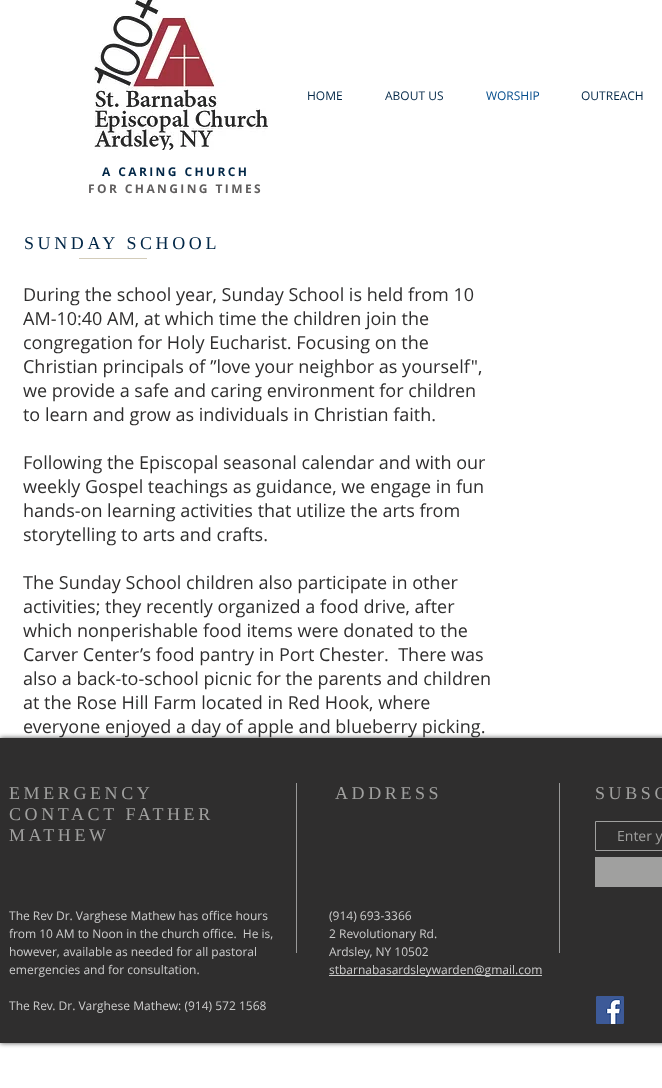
<svg xmlns="http://www.w3.org/2000/svg" width="662" height="1088" viewBox="0 0 662 1088">
  <rect width="100%" height="100%" fill="#fff"/>
  <image x="94" y="0" width="175" height="150" href="img/1.png"/>
  <path d="M79 258h68v1H79z" fill="#d3ccba"/>
  <path d="M0 738h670v305H0z" fill="#000000b3" filter="blur(2.5px)"/>
  <path d="M0 738h662v305H0z" fill="#2f2e2e"/>
  <path d="M296 783h1v170H296z" fill="#999"/>
  <path d="M559 783h1v170H559z" fill="#999"/>
  <path d="M595.5 821.5h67v29H595.5z" fill="none" stroke="#a0a09f"/>
  <path d="M595 857h67v30H595z" fill="#a0a09f"/>
  <path d="M329 975h213v1H329z" fill="#ccc"/>
  <image x="596" y="996" width="28" height="28" href="img/2.png"/>
  <g font-family="Open Sans" font-size="12" fill="#012646">
    <text x="307" y="100">HOME</text>
    <text x="385" y="100">ABOUT US</text>
  </g>
  <text x="486" y="100" font-family="Open Sans" font-size="12" fill="#034c8c">WORSHIP</text>
  <text x="581" y="100" font-family="Open Sans" font-size="12" fill="#012646">OUTREACH</text>
  <text x="102" y="176" font-family="Open Sans" font-size="12" font-weight="bold" letter-spacing="2.4" fill="#012646">A CARING CHURCH</text>
  <text x="88" y="193" font-family="Open Sans" font-size="12" font-weight="bold" letter-spacing="2.4" fill="#605e5e">FOR CHANGING TIMES</text>
  <text x="24" y="249" font-family="Liberation Serif" font-size="18" letter-spacing="3.6" fill="#012646">SUNDAY SCHOOL</text>
  <g font-family="Open Sans" font-size="18" fill="#2f2e2e">
    <text x="23" y="301">During the school year, Sunday School is held from 10</text>
    <text x="23" y="325">AM-10:40 AM, at which time the children join the</text>
    <text x="23" y="349">congregation for Holy Eucharist. Focusing on the</text>
    <text x="23" y="373">Christian principals of ”love your neighbor as yourself",</text>
    <text x="23" y="397">we provide a safe and caring environment for children</text>
    <text x="23" y="421">to learn and grow as individuals in Christian faith.</text>
    <text x="23" y="469">Following the Episcopal seasonal calendar and with our</text>
    <text x="23" y="493">weekly Gospel teachings as guidance, we engage in fun</text>
    <text x="23" y="517">hands-on learning activities that utilize the arts from</text>
    <text x="23" y="541">storytelling to arts and crafts.</text>
    <text x="23" y="589">The Sunday School children also participate in other</text>
    <text x="23" y="613">activities; they recently organized a food drive, after</text>
    <text x="23" y="637">which nonperishable food items were donated to the</text>
    <text x="23" y="661" xml:space="preserve">Carver Center’s food pantry in Port Chester.  There was</text>
    <text x="23" y="685">also a back-to-school picnic for the parents and children</text>
    <text x="23" y="709">at the Rose Hill Farm located in Red Hook, where</text>
    <text x="23" y="733">everyone enjoyed a day of apple and blueberry picking.</text>
  </g>
  <g font-family="Liberation Serif" font-size="18" letter-spacing="3.6" fill="#a0a09f">
    <text x="9" y="799">EMERGENCY</text>
    <text x="9" y="820">CONTACT FATHER</text>
    <text x="9" y="841">MATHEW</text>
    <text x="335" y="799">ADDRESS</text>
    <text x="595" y="799">SUBSC</text>
  </g>
  <text x="617" y="841" font-family="Open Sans" font-size="14" fill="#a0a09f">Enter y</text>
  <g font-family="Open Sans" font-size="12" fill="#ccc">
    <text x="9" y="920">The Rev Dr. Varghese Mathew has office hours</text>
    <text x="9" y="938" xml:space="preserve">from 10 AM to Noon in the church office.  He is,</text>
    <text x="9" y="956">however, available as needed for all pastoral</text>
    <text x="9" y="974">emergencies and for consultation.</text>
    <text x="9" y="1010">The Rev. Dr. Varghese Mathew: (914) 572 1568</text>
    <text x="329" y="920">(914) 693-3366</text>
    <text x="329" y="938">2 Revolutionary Rd.</text>
    <text x="329" y="956">Ardsley, NY 10502</text>
    <text x="329" y="974">stbarnabasardsleywarden@gmail.com</text>
  </g>
</svg>
